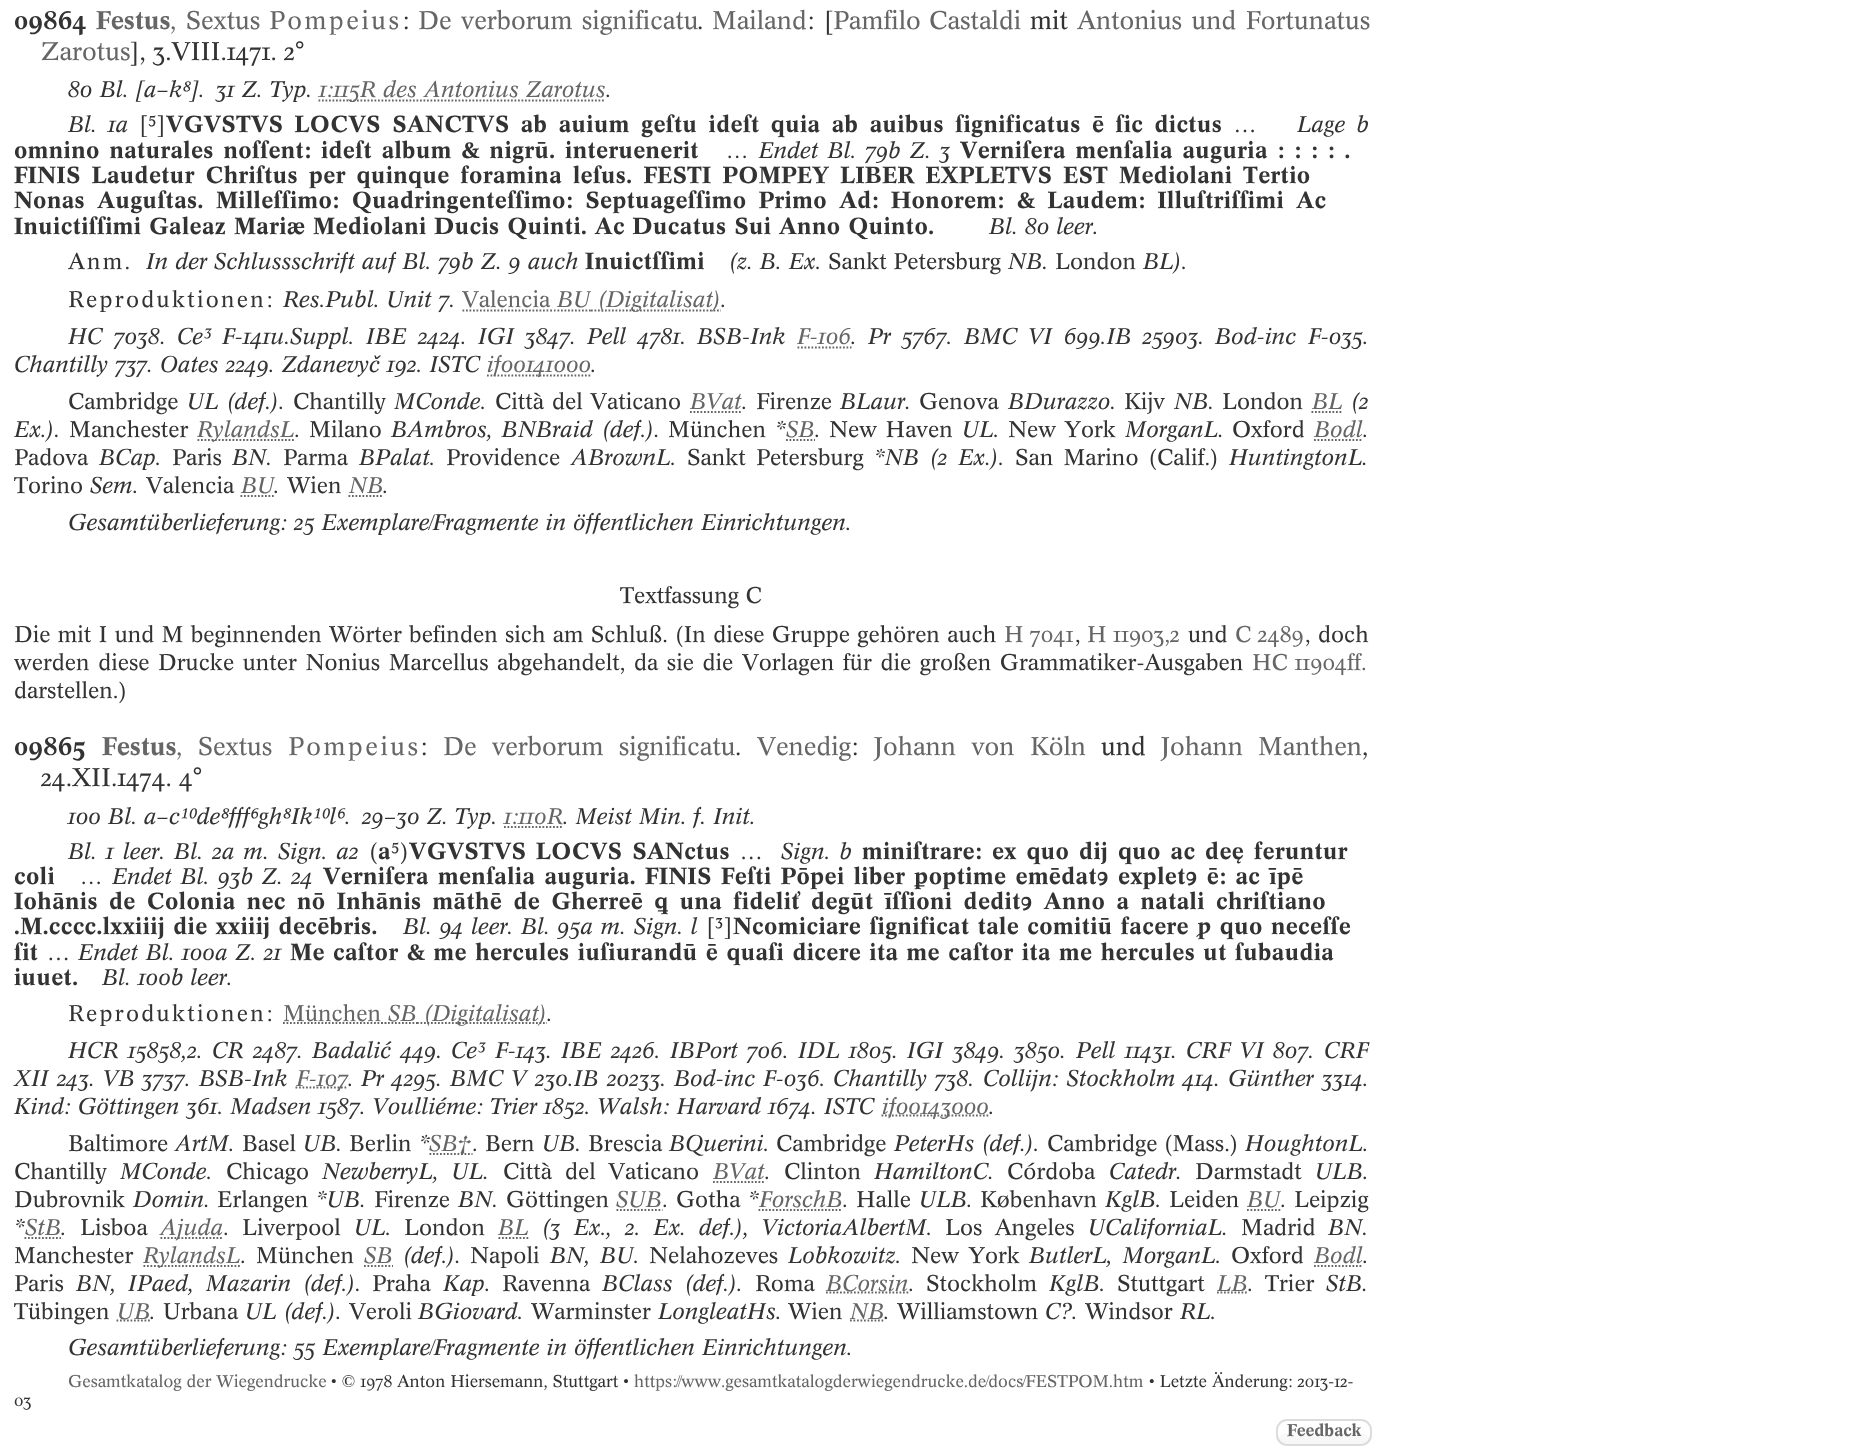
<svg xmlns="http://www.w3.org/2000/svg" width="1867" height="1454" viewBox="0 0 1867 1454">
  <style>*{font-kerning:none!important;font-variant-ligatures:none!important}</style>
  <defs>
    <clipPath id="clip1"><rect x="1276" y="1419" width="96" height="27" rx="11"/></clipPath>
    <linearGradient id="g1" gradientUnits="userSpaceOnUse" x1="1324" y1="1421" x2="1324" y2="1444"><stop offset="0.05" stop-color="#fff"/><stop offset="1" stop-color="#f6f6f6"/></linearGradient>
  </defs>
  <rect width="100%" height="100%" fill="#fff"/>
  <path d="M318.5 100.5H605.5" fill="none" stroke="#666" stroke-width="1.8" stroke-dasharray="1.75 1.75"/>
  <path d="M462.5 310.5H550.5" fill="none" stroke="#666" stroke-width="1.8" stroke-dasharray="1.75 1.75"/>
  <path d="M550.5 310.5H552M554 310.5H555.5" fill="none" stroke="#666" stroke-width="1.8"/>
  <path d="M557.5 310.5H591" fill="none" stroke="#666" stroke-width="1.8" stroke-dasharray="1.75 1.75"/>
  <path d="M591 310.5H721" fill="none" stroke="#666" stroke-width="1.8" stroke-dasharray="1.75 1.75"/>
  <path d="M797.5 347.5H851.5" fill="none" stroke="#666" stroke-width="1.8" stroke-dasharray="1.75 1.75"/>
  <path d="M487 375.5H591.5" fill="none" stroke="#666" stroke-width="1.8" stroke-dasharray="1.75 1.75"/>
  <path d="M690 412H742" fill="none" stroke="#666" stroke-width="1.8" stroke-dasharray="1.75 1.75"/>
  <path d="M1311.5 412H1342.5" fill="none" stroke="#666" stroke-width="1.8" stroke-dasharray="1.75 1.75"/>
  <path d="M197.5 440H295" fill="none" stroke="#666" stroke-width="1.8" stroke-dasharray="1.75 1.75"/>
  <path d="M786 440H815" fill="none" stroke="#666" stroke-width="1.8" stroke-dasharray="1.75 1.75"/>
  <path d="M1314 440H1363" fill="none" stroke="#666" stroke-width="1.8" stroke-dasharray="1.75 1.75"/>
  <path d="M240.5 496H274.5" fill="none" stroke="#666" stroke-width="1.8" stroke-dasharray="1.75 1.75"/>
  <path d="M348.5 496H383" fill="none" stroke="#666" stroke-width="1.8" stroke-dasharray="1.75 1.75"/>
  <path d="M504 827H563" fill="none" stroke="#666" stroke-width="1.8" stroke-dasharray="1.75 1.75"/>
  <path d="M283 1023H381" fill="none" stroke="#666" stroke-width="1.8" stroke-dasharray="1.75 1.75"/>
  <path d="M381 1023H383M384.5 1023H386.5" fill="none" stroke="#666" stroke-width="1.8"/>
  <path d="M388 1023H417" fill="none" stroke="#666" stroke-width="1.8" stroke-dasharray="1.75 1.75"/>
  <path d="M417 1023H547" fill="none" stroke="#666" stroke-width="1.8" stroke-dasharray="1.75 1.75"/>
  <path d="M295.5 1087.5H348" fill="none" stroke="#666" stroke-width="1.8" stroke-dasharray="1.75 1.75"/>
  <path d="M881.5 1115.5H989" fill="none" stroke="#666" stroke-width="1.8" stroke-dasharray="1.75 1.75"/>
  <path d="M429.5 1154H472.5" fill="none" stroke="#666" stroke-width="1.8" stroke-dasharray="1.75 1.75"/>
  <path d="M713 1182H764.5" fill="none" stroke="#666" stroke-width="1.8" stroke-dasharray="1.75 1.75"/>
  <path d="M616.5 1210H662.5" fill="none" stroke="#666" stroke-width="1.8" stroke-dasharray="1.75 1.75"/>
  <path d="M758.5 1210H842.5" fill="none" stroke="#666" stroke-width="1.8" stroke-dasharray="1.75 1.75"/>
  <path d="M1247 1210H1280.5" fill="none" stroke="#666" stroke-width="1.8" stroke-dasharray="1.75 1.75"/>
  <path d="M24.5 1238H61" fill="none" stroke="#666" stroke-width="1.8" stroke-dasharray="1.75 1.75"/>
  <path d="M160.5 1238H223.5" fill="none" stroke="#666" stroke-width="1.8" stroke-dasharray="1.75 1.75"/>
  <path d="M498.5 1238H529.5" fill="none" stroke="#666" stroke-width="1.8" stroke-dasharray="1.75 1.75"/>
  <path d="M143.5 1266H240.5" fill="none" stroke="#666" stroke-width="1.8" stroke-dasharray="1.75 1.75"/>
  <path d="M364 1266H393" fill="none" stroke="#666" stroke-width="1.8" stroke-dasharray="1.75 1.75"/>
  <path d="M1314 1266H1363" fill="none" stroke="#666" stroke-width="1.8" stroke-dasharray="1.75 1.75"/>
  <path d="M826 1292.5H908.5" fill="none" stroke="#666" stroke-width="1.8" stroke-dasharray="1.75 1.75"/>
  <path d="M1217 1292.5H1247.5" fill="none" stroke="#666" stroke-width="1.8" stroke-dasharray="1.75 1.75"/>
  <path d="M116.5 1320.5H150" fill="none" stroke="#666" stroke-width="1.8" stroke-dasharray="1.75 1.75"/>
  <path d="M850 1320.5H884.5" fill="none" stroke="#666" stroke-width="1.8" stroke-dasharray="1.75 1.75"/>
  <g clip-path="url(#clip1)">
    <path d="M1276 1421h96v23H1276z" fill="url(#g1)"/>
  </g>
  <path d="M1286 1433H1362C1365 1433 1368 1435 1369 1438C1370 1436 1370 1434 1370 1432C1370 1418 1359 1421 1349 1421H1299C1289 1421 1278 1418 1278 1432L1279 1438C1280 1435 1282 1433 1286 1433Z" fill="#fff"/>
  <rect x="1277" y="1420" width="94" height="25" rx="10" fill="none" stroke="#dcdcdc" stroke-width="2"/>
  <text x="14" y="29" font-family="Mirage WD" font-size="25.25" font-weight="bold" fill="#333">09864</text>
  <text x="96" y="29" font-family="Mirage WD" font-size="25.25" font-weight="bold" fill="#666">Festus</text>
  <text x="170" y="29" word-spacing="2" font-family="Mirage WD" font-size="25.25" fill="#666">, Sextus</text>
  <text x="269" y="29" font-family="Mirage WD" font-size="25.25" letter-spacing="2.5" fill="#666">Pompeius</text>
  <text x="402" y="29" font-family="Mirage WD" font-size="25.25" fill="#333">:</text>
  <text x="418" y="29" word-spacing="2" font-family="Mirage WD" font-size="25.25" fill="#666">De verborum significatu</text>
  <text x="697" y="29" font-family="Mirage WD" font-size="25.25" fill="#333">.</text>
  <text x="712" y="29" font-family="Mirage WD" font-size="25.25" fill="#666">Mailand</text>
  <text x="807" y="29" word-spacing="2" font-family="Mirage WD" font-size="25.25" fill="#333">: [</text>
  <g font-family="Mirage WD" font-size="25.25" fill="#666">
    <text x="833" y="29">Pamfilo</text>
    <text x="929" y="29">Castaldi</text>
  </g>
  <text x="1030" y="29" font-family="Mirage WD" font-size="25.25" fill="#333">mit</text>
  <g font-family="Mirage WD" font-size="25.25" fill="#666">
    <text x="1077" y="29" word-spacing="2">Antonius und Fortunatus</text>
    <text x="41" y="60">Zarotus</text>
  </g>
  <text x="130" y="60" font-family="Mirage WD" font-size="25.25" fill="#333">], 3.VIII.1471. 2°</text>
  <g font-family="Mirage WD" font-size="22.4" font-style="italic" fill="#333">
    <text x="68" y="97">80 Bl. [a–k⁸].</text>
    <text x="216" y="97">31 Z. Typ.</text>
  </g>
  <text x="319" y="97" font-family="Mirage WD" font-size="22.4" font-style="italic" fill="#666">1:115R des Antonius Zarotus</text>
  <g font-family="Mirage WD" font-size="22.4" font-style="italic" fill="#333">
    <text x="606" y="97">.</text>
    <text x="68" y="132" word-spacing="4">Bl. 1a</text>
  </g>
  <text x="139" y="132" font-family="Mirage WD" font-size="22.95" letter-spacing="0.46" fill="#333">[⁵]</text>
  <text x="166" y="132" word-spacing="3.6" font-family="Mirage WD" font-size="22.95" font-weight="bold" letter-spacing="0.46" fill="#333">VGVSTVS LOCVS SANCTVS ab auium geſtu ideſt quia ab auibus ſignificatus ē  ſic dictus …</text>
  <text x="1297" y="132" word-spacing="4" font-family="Mirage WD" font-size="22.4" font-style="italic" fill="#333">Lage b</text>
  <text x="14" y="158" word-spacing="2" font-family="Mirage WD" font-size="22.95" font-weight="bold" letter-spacing="0.46" fill="#333">omnino naturales noſſent: ideſt album &amp; nigrū. interuenerit </text>
  <text x="727" y="158" word-spacing="2" font-family="Mirage WD" font-size="22.4" font-style="italic" fill="#333">… Endet Bl. 79b Z. 3</text>
  <g font-family="Mirage WD" font-size="22.95" font-weight="bold" letter-spacing="0.46" fill="#333">
    <text x="960" y="158" word-spacing="2">Verniſera menſalia auguria : : : : . </text>
    <text x="14" y="183" word-spacing="3.25">FINIS  Laudetur Chriſtus per quinque foramina leſus.  FESTI POMPEY LIBER EXPLETVS EST  Mediolani Tertio</text>
    <text x="14" y="208" word-spacing="4.6">Nonas Auguſtas. Milleſſimo:  Quadringenteſſimo: Septuageſſimo Primo Ad:  Honorem: &amp; Laudem: Illuſtriſſimi Ac</text>
    <text x="14" y="234">Inuictiſſimi  Galeaz Mariæ Mediolani Ducis Quinti.  Ac Ducatus Sui Anno Quinto. </text>
  </g>
  <text x="989" y="234" font-family="Mirage WD" font-size="22.4" font-style="italic" fill="#333">Bl. 80 leer.</text>
  <text x="68" y="269" font-family="Mirage WD" font-size="22.4" letter-spacing="2.25" fill="#333">Anm.</text>
  <text x="146" y="269" font-family="Mirage WD" font-size="22.4" font-style="italic" fill="#333">In der Schlussschrift auf Bl. 79b Z. 9 auch</text>
  <text x="585" y="269" font-family="Mirage WD" font-size="22.95" font-weight="bold" letter-spacing="0.46" fill="#333">Inuictſſimi </text>
  <text x="729" y="269" font-family="Mirage WD" font-size="22.4" font-style="italic" fill="#333">(z. B. Ex.</text>
  <text x="828" y="269" font-family="Mirage WD" font-size="22.4" fill="#333">Sankt Petersburg</text>
  <text x="1008" y="269" font-family="Mirage WD" font-size="22.4" font-style="italic" fill="#333">NB.</text>
  <text x="1055" y="269" font-family="Mirage WD" font-size="22.4" fill="#333">London</text>
  <text x="1143" y="269" font-family="Mirage WD" font-size="22.4" font-style="italic" fill="#333">BL).</text>
  <text x="68" y="307" font-family="Mirage WD" font-size="22.4" letter-spacing="2.25" fill="#333">Reproduktionen:</text>
  <text x="283" y="307" font-family="Mirage WD" font-size="22.4" font-style="italic" fill="#333">Res.Publ. Unit 7.</text>
  <text x="462" y="307" font-family="Mirage WD" font-size="22.4" fill="#666">Valencia</text>
  <g font-family="Mirage WD" font-size="22.4" font-style="italic" fill="#666">
    <text x="557" y="307">BU</text>
    <text x="598" y="307">(Digitalisat)</text>
  </g>
  <g font-family="Mirage WD" font-size="22.4" font-style="italic" fill="#333">
    <text x="721" y="307">.</text>
    <text x="68" y="344">HC</text>
    <text x="114" y="344">7038.</text>
    <text x="177" y="344">Ce³</text>
    <text x="222" y="344">F-141u.Suppl.</text>
    <text x="366" y="344">IBE</text>
    <text x="418" y="344">2424.</text>
    <text x="478" y="344">IGI</text>
    <text x="525" y="344">3847.</text>
    <text x="587" y="344">Pell</text>
    <text x="638" y="344">4781.</text>
    <text x="697" y="344">BSB-Ink</text>
  </g>
  <text x="797" y="344" font-family="Mirage WD" font-size="22.4" font-style="italic" fill="#666">F-106</text>
  <g font-family="Mirage WD" font-size="22.4" font-style="italic" fill="#333">
    <text x="851" y="344">.</text>
    <text x="868" y="344">Pr</text>
    <text x="902" y="344">5767.</text>
    <text x="964" y="344" word-spacing="4">BMC VI</text>
    <text x="1064" y="344" word-spacing="4">699.IB 25903.</text>
    <text x="1215" y="344">Bod-inc</text>
    <text x="1308" y="344">F-035.</text>
    <text x="14" y="372">Chantilly 737. Oates 2249. Zdanevyč 192. ISTC</text>
  </g>
  <text x="487" y="372" font-family="Mirage WD" font-size="22.4" font-style="italic" fill="#666">if00141000</text>
  <text x="591" y="372" font-family="Mirage WD" font-size="22.4" font-style="italic" fill="#333">.</text>
  <text x="68" y="409" font-family="Mirage WD" font-size="22.4" fill="#333">Cambridge</text>
  <text x="187" y="409" word-spacing="1" font-family="Mirage WD" font-size="22.4" font-style="italic" fill="#333">UL (def.).</text>
  <text x="293" y="409" font-family="Mirage WD" font-size="22.4" fill="#333">Chantilly</text>
  <text x="394" y="409" font-family="Mirage WD" font-size="22.4" font-style="italic" fill="#333">MConde.</text>
  <text x="495" y="409" word-spacing="1" font-family="Mirage WD" font-size="22.4" fill="#333">Città del Vaticano</text>
  <text x="690" y="409" font-family="Mirage WD" font-size="22.4" font-style="italic" fill="#666">BVat</text>
  <text x="742" y="409" font-family="Mirage WD" font-size="22.4" font-style="italic" fill="#333">.</text>
  <text x="756" y="409" font-family="Mirage WD" font-size="22.4" fill="#333">Firenze</text>
  <text x="840" y="409" font-family="Mirage WD" font-size="22.4" font-style="italic" fill="#333">BLaur.</text>
  <text x="919" y="409" font-family="Mirage WD" font-size="22.4" fill="#333">Genova</text>
  <text x="1008" y="409" font-family="Mirage WD" font-size="22.4" font-style="italic" fill="#333">BDurazzo.</text>
  <text x="1124" y="409" font-family="Mirage WD" font-size="22.4" fill="#333">Kijv</text>
  <text x="1174" y="409" font-family="Mirage WD" font-size="22.4" font-style="italic" fill="#333">NB.</text>
  <text x="1222" y="409" font-family="Mirage WD" font-size="22.4" fill="#333">London</text>
  <text x="1312" y="409" font-family="Mirage WD" font-size="22.4" font-style="italic" fill="#666">BL</text>
  <g font-family="Mirage WD" font-size="22.4" font-style="italic" fill="#333">
    <text x="1351" y="409">(2</text>
    <text x="14" y="437">Ex.).</text>
  </g>
  <text x="69" y="437" font-family="Mirage WD" font-size="22.4" fill="#333">Manchester</text>
  <text x="197" y="437" font-family="Mirage WD" font-size="22.4" font-style="italic" fill="#666">RylandsL</text>
  <text x="295" y="437" font-family="Mirage WD" font-size="22.4" font-style="italic" fill="#333">.</text>
  <text x="309" y="437" font-family="Mirage WD" font-size="22.4" fill="#333">Milano</text>
  <text x="391" y="437" word-spacing="2" font-family="Mirage WD" font-size="22.4" font-style="italic" fill="#333">BAmbros, BNBraid (def.).</text>
  <text x="668" y="437" font-family="Mirage WD" font-size="22.4" fill="#333">München</text>
  <text x="775" y="437" font-family="Mirage WD" font-size="22.4" font-style="italic" fill="#333">*</text>
  <text x="786" y="437" font-family="Mirage WD" font-size="22.4" font-style="italic" fill="#666">SB</text>
  <text x="815" y="437" font-family="Mirage WD" font-size="22.4" font-style="italic" fill="#333">.</text>
  <text x="829" y="437" word-spacing="2" font-family="Mirage WD" font-size="22.4" fill="#333">New Haven</text>
  <text x="962" y="437" font-family="Mirage WD" font-size="22.4" font-style="italic" fill="#333">UL.</text>
  <text x="1008" y="437" word-spacing="2" font-family="Mirage WD" font-size="22.4" fill="#333">New York</text>
  <text x="1125" y="437" font-family="Mirage WD" font-size="22.4" font-style="italic" fill="#333">MorganL.</text>
  <text x="1232" y="437" font-family="Mirage WD" font-size="22.4" fill="#333">Oxford</text>
  <text x="1314" y="437" font-family="Mirage WD" font-size="22.4" font-style="italic" fill="#666">Bodl</text>
  <text x="1363" y="437" font-family="Mirage WD" font-size="22.4" font-style="italic" fill="#333">.</text>
  <text x="14" y="465" font-family="Mirage WD" font-size="22.4" fill="#333">Padova</text>
  <text x="99" y="465" font-family="Mirage WD" font-size="22.4" font-style="italic" fill="#333">BCap.</text>
  <text x="172" y="465" font-family="Mirage WD" font-size="22.4" fill="#333">Paris</text>
  <text x="232" y="465" font-family="Mirage WD" font-size="22.4" font-style="italic" fill="#333">BN.</text>
  <text x="283" y="465" font-family="Mirage WD" font-size="22.4" fill="#333">Parma</text>
  <text x="359" y="465" font-family="Mirage WD" font-size="22.4" font-style="italic" fill="#333">BPalat.</text>
  <text x="446" y="465" font-family="Mirage WD" font-size="22.4" fill="#333">Providence</text>
  <text x="571" y="465" font-family="Mirage WD" font-size="22.4" font-style="italic" fill="#333">ABrownL.</text>
  <text x="687" y="465" word-spacing="3.6" font-family="Mirage WD" font-size="22.4" fill="#333">Sankt Petersburg</text>
  <text x="874" y="465" word-spacing="3.6" font-family="Mirage WD" font-size="22.4" font-style="italic" fill="#333">*NB (2 Ex.).</text>
  <text x="1015" y="465" word-spacing="3.6" font-family="Mirage WD" font-size="22.4" fill="#333">San Marino (Calif.)</text>
  <text x="1229" y="465" font-family="Mirage WD" font-size="22.4" font-style="italic" fill="#333">HuntingtonL.</text>
  <text x="14" y="493" font-family="Mirage WD" font-size="22.4" fill="#333">Torino</text>
  <text x="90" y="493" font-family="Mirage WD" font-size="22.4" font-style="italic" fill="#333">Sem.</text>
  <text x="146" y="493" font-family="Mirage WD" font-size="22.4" fill="#333">Valencia</text>
  <text x="241" y="493" font-family="Mirage WD" font-size="22.4" font-style="italic" fill="#666">BU</text>
  <text x="274" y="493" font-family="Mirage WD" font-size="22.4" font-style="italic" fill="#333">.</text>
  <text x="287" y="493" font-family="Mirage WD" font-size="22.4" fill="#333">Wien</text>
  <text x="349" y="493" font-family="Mirage WD" font-size="22.4" font-style="italic" fill="#666">NB</text>
  <g font-family="Mirage WD" font-size="22.4" font-style="italic" fill="#333">
    <text x="383" y="493">.</text>
    <text x="68" y="530">Gesamtüberlieferung: 25 Exemplare/Fragmente in öffentlichen</text>
    <text x="701" y="530">Einrichtungen.</text>
  </g>
  <g font-family="Mirage WD" font-size="22.4" fill="#333">
    <text x="620" y="603">Textfassung C</text>
    <text x="14" y="642" word-spacing="0.75">Die mit I und M beginnenden Wörter befinden sich am Schluß. (In diese Gruppe gehören auch</text>
  </g>
  <text x="1004" y="642" font-family="Mirage WD" font-size="22.4" fill="#666">H 7041</text>
  <text x="1075" y="642" font-family="Mirage WD" font-size="22.4" fill="#333">,</text>
  <text x="1087" y="642" font-family="Mirage WD" font-size="22.4" fill="#666">H 11903,2</text>
  <text x="1188" y="642" font-family="Mirage WD" font-size="22.4" fill="#333">und</text>
  <text x="1235" y="642" font-family="Mirage WD" font-size="22.4" fill="#666">C 2489</text>
  <g font-family="Mirage WD" font-size="22.4" fill="#333">
    <text x="1305" y="642" word-spacing="0.75">, doch</text>
    <text x="14" y="670" word-spacing="2.1">werden diese Drucke unter Nonius Marcellus abgehandelt, da sie die Vorlagen für die großen Grammatiker-Ausgaben</text>
  </g>
  <text x="1252" y="670" font-family="Mirage WD" font-size="22.4" fill="#666">HC 11904ff.</text>
  <text x="14" y="698" font-family="Mirage WD" font-size="22.4" fill="#333">darstellen.)</text>
  <text x="14" y="755" font-family="Mirage WD" font-size="25.25" font-weight="bold" fill="#333">09865</text>
  <text x="102" y="755" font-family="Mirage WD" font-size="25.25" font-weight="bold" fill="#666">Festus</text>
  <text x="176" y="755" word-spacing="8" font-family="Mirage WD" font-size="25.25" fill="#666">, Sextus</text>
  <text x="288" y="755" font-family="Mirage WD" font-size="25.25" letter-spacing="2.5" fill="#666">Pompeius</text>
  <text x="420" y="755" font-family="Mirage WD" font-size="25.25" fill="#333">:</text>
  <text x="443" y="755" word-spacing="8" font-family="Mirage WD" font-size="25.25" fill="#666">De verborum significatu</text>
  <text x="735" y="755" font-family="Mirage WD" font-size="25.25" fill="#333">.</text>
  <text x="757" y="755" font-family="Mirage WD" font-size="25.25" fill="#666">Venedig</text>
  <text x="851" y="755" font-family="Mirage WD" font-size="25.25" fill="#333">:</text>
  <text x="874" y="755" word-spacing="8" font-family="Mirage WD" font-size="25.25" fill="#666">Johann von Köln</text>
  <text x="1101" y="755" font-family="Mirage WD" font-size="25.25" fill="#333">und</text>
  <g font-family="Mirage WD" font-size="25.25" fill="#666">
    <text x="1161" y="755">Johann</text>
    <text x="1258" y="755">Manthen</text>
  </g>
  <g font-family="Mirage WD" font-size="25.25" fill="#333">
    <text x="1362" y="755">,</text>
    <text x="41" y="786">24.XII.1474. 4°</text>
  </g>
  <g font-family="Mirage WD" font-size="22.4" font-style="italic" fill="#333">
    <text x="68" y="824">100 Bl. a–c¹⁰de⁸fff⁶gh⁸Ik¹⁰l⁶.</text>
    <text x="362" y="824">29–30 Z. Typ.</text>
  </g>
  <text x="504" y="824" font-family="Mirage WD" font-size="22.4" font-style="italic" fill="#666">1:110R</text>
  <g font-family="Mirage WD" font-size="22.4" font-style="italic" fill="#333">
    <text x="563" y="824">. Meist Min. f. Init.</text>
    <text x="68" y="859" word-spacing="2.1">Bl. 1 leer. Bl. 2a m. Sign. a2</text>
  </g>
  <text x="369" y="859" font-family="Mirage WD" font-size="22.95" letter-spacing="0.46" fill="#333">(</text>
  <text x="378" y="859" font-family="Mirage WD" font-size="22.95" font-weight="bold" letter-spacing="0.46" fill="#333">a</text>
  <text x="391" y="859" font-family="Mirage WD" font-size="22.95" letter-spacing="0.46" fill="#333">⁵)</text>
  <text x="409" y="859" word-spacing="2.1" font-family="Mirage WD" font-size="22.95" font-weight="bold" letter-spacing="0.46" fill="#333">VGVSTVS LOCVS SANctus …</text>
  <text x="781" y="859" word-spacing="2" font-family="Mirage WD" font-size="22.4" font-style="italic" fill="#333">Sign. b</text>
  <g font-family="Mirage WD" font-size="22.95" font-weight="bold" letter-spacing="0.46" fill="#333">
    <text x="862" y="859" word-spacing="2.1">miniſtrare: ex quo dij quo ac deę feruntur</text>
    <text x="14" y="884" word-spacing="2">coli </text>
  </g>
  <text x="81" y="884" word-spacing="1.5" font-family="Mirage WD" font-size="22.4" font-style="italic" fill="#333">… Endet Bl. 93b Z. 24</text>
  <g font-family="Mirage WD" font-size="22.95" font-weight="bold" letter-spacing="0.46" fill="#333">
    <text x="323" y="884" word-spacing="1.5">Verniſera menſalia auguria.  FINIS  Feſti Pōpei liber ꝑoptime emēdatꝯ expletꝯ ē: ac īpē </text>
    <text x="14" y="909" word-spacing="3.5">Iohānis de Colonia nec nō Inhānis māthē de Gherreē ꝗ una fideliť degūt īſſioni deditꝯ Anno a natali chriſtiano</text>
    <text x="14" y="934" word-spacing="0.5">.M.cccc.lxxiiij die xxiiij decēbris. </text>
  </g>
  <text x="403" y="934" word-spacing="0.75" font-family="Mirage WD" font-size="22.4" font-style="italic" fill="#333">Bl. 94 leer. Bl. 95a m. Sign. l</text>
  <text x="706" y="934" font-family="Mirage WD" font-size="22.95" letter-spacing="0.46" fill="#333">[³]</text>
  <g font-family="Mirage WD" font-size="22.95" font-weight="bold" letter-spacing="0.46" fill="#333">
    <text x="733" y="934" word-spacing="0.5">Ncomiciare ſignificat tale comitiū facere ꝓ  quo neceſſe</text>
    <text x="14" y="960" word-spacing="1">ſit …</text>
  </g>
  <text x="78" y="960" word-spacing="0.5" font-family="Mirage WD" font-size="22.4" font-style="italic" fill="#333">Endet Bl. 100a Z. 21</text>
  <g font-family="Mirage WD" font-size="22.95" font-weight="bold" letter-spacing="0.46" fill="#333">
    <text x="290" y="960" word-spacing="0.6">Me caſtor &amp; me hercules iuſiurandū ē quaſi dicere  ita me caſtor ita me hercules ut ſubaudia</text>
    <text x="14" y="985">iuuet. </text>
  </g>
  <text x="102" y="985" font-family="Mirage WD" font-size="22.4" font-style="italic" fill="#333">Bl. 100b leer.</text>
  <text x="68" y="1021" font-family="Mirage WD" font-size="22.4" letter-spacing="2.25" fill="#333">Reproduktionen:</text>
  <text x="283" y="1021" font-family="Mirage WD" font-size="22.4" fill="#666">München</text>
  <g font-family="Mirage WD" font-size="22.4" font-style="italic" fill="#666">
    <text x="388" y="1021">SB</text>
    <text x="424" y="1021">(Digitalisat)</text>
  </g>
  <g font-family="Mirage WD" font-size="22.4" font-style="italic" fill="#333">
    <text x="547" y="1021">.</text>
    <text x="68" y="1058">HCR</text>
    <text x="128" y="1058">15858,2.</text>
    <text x="212" y="1058">CR</text>
    <text x="253" y="1058">2487.</text>
    <text x="312" y="1058">Badalić</text>
    <text x="401" y="1058">449.</text>
    <text x="451" y="1058">Ce³</text>
    <text x="495" y="1058">F-143.</text>
    <text x="561" y="1058">IBE</text>
    <text x="611" y="1058">2426.</text>
    <text x="670" y="1058">IBPort</text>
    <text x="747" y="1058">706.</text>
    <text x="798" y="1058">IDL</text>
    <text x="849" y="1058">1805.</text>
    <text x="907" y="1058">IGI</text>
    <text x="953" y="1058" word-spacing="2">3849. 3850.</text>
    <text x="1076" y="1058">Pell</text>
    <text x="1125" y="1058">11431.</text>
    <text x="1186" y="1058" word-spacing="2">CRF VI</text>
    <text x="1273" y="1058">807.</text>
    <text x="1324" y="1058">CRF</text>
    <text x="14" y="1086">XII</text>
    <text x="57" y="1086">243.</text>
    <text x="103" y="1086">VB</text>
    <text x="142" y="1086">3737.</text>
    <text x="199" y="1086">BSB-Ink</text>
  </g>
  <text x="296" y="1086" font-family="Mirage WD" font-size="22.4" font-style="italic" fill="#666">F-107</text>
  <g font-family="Mirage WD" font-size="22.4" font-style="italic" fill="#333">
    <text x="348" y="1086">.</text>
    <text x="361" y="1086">Pr</text>
    <text x="392" y="1086">4295.</text>
    <text x="450" y="1086" word-spacing="1">BMC V</text>
    <text x="535" y="1086" word-spacing="1">230.IB 20233.</text>
    <text x="674" y="1086">Bod-inc</text>
    <text x="763" y="1086">F-036.</text>
    <text x="833" y="1086">Chantilly</text>
    <text x="935" y="1086">738.</text>
    <text x="983" y="1086" word-spacing="1">Collijn: Stockholm</text>
    <text x="1183" y="1086">414.</text>
    <text x="1228" y="1086">Günther</text>
    <text x="1322" y="1086">3314.</text>
    <text x="14" y="1114">Kind: Göttingen 361. Madsen 1587. Voulliéme: Trier 1852. Walsh: Harvard 1674. ISTC</text>
  </g>
  <text x="882" y="1114" font-family="Mirage WD" font-size="22.4" font-style="italic" fill="#666">if00143000</text>
  <text x="989" y="1114" font-family="Mirage WD" font-size="22.4" font-style="italic" fill="#333">.</text>
  <text x="68" y="1151" font-family="Mirage WD" font-size="22.4" fill="#333">Baltimore</text>
  <text x="175" y="1151" font-family="Mirage WD" font-size="22.4" font-style="italic" fill="#333">ArtM.</text>
  <text x="242" y="1151" font-family="Mirage WD" font-size="22.4" fill="#333">Basel</text>
  <text x="303" y="1151" font-family="Mirage WD" font-size="22.4" font-style="italic" fill="#333">UB.</text>
  <text x="349" y="1151" font-family="Mirage WD" font-size="22.4" fill="#333">Berlin</text>
  <text x="419" y="1151" font-family="Mirage WD" font-size="22.4" font-style="italic" fill="#333">*</text>
  <text x="429" y="1151" font-family="Mirage WD" font-size="22.4" font-style="italic" fill="#666">SB†</text>
  <text x="473" y="1151" font-family="Mirage WD" font-size="22.4" font-style="italic" fill="#333">.</text>
  <text x="485" y="1151" font-family="Mirage WD" font-size="22.4" fill="#333">Bern</text>
  <text x="542" y="1151" font-family="Mirage WD" font-size="22.4" font-style="italic" fill="#333">UB.</text>
  <text x="588" y="1151" font-family="Mirage WD" font-size="22.4" fill="#333">Brescia</text>
  <text x="669" y="1151" font-family="Mirage WD" font-size="22.4" font-style="italic" fill="#333">BQuerini.</text>
  <text x="776" y="1151" font-family="Mirage WD" font-size="22.4" fill="#333">Cambridge</text>
  <text x="894" y="1151" font-family="Mirage WD" font-size="22.4" font-style="italic" fill="#333">PeterHs (def.).</text>
  <text x="1047" y="1151" font-family="Mirage WD" font-size="22.4" fill="#333">Cambridge (Mass.)</text>
  <text x="1245" y="1151" font-family="Mirage WD" font-size="22.4" font-style="italic" fill="#333">HoughtonL.</text>
  <text x="14" y="1179" font-family="Mirage WD" font-size="22.4" fill="#333">Chantilly</text>
  <text x="120" y="1179" font-family="Mirage WD" font-size="22.4" font-style="italic" fill="#333">MConde.</text>
  <text x="226" y="1179" font-family="Mirage WD" font-size="22.4" fill="#333">Chicago</text>
  <text x="322" y="1179" word-spacing="6" font-family="Mirage WD" font-size="22.4" font-style="italic" fill="#333">NewberryL, UL.</text>
  <text x="503" y="1179" word-spacing="6" font-family="Mirage WD" font-size="22.4" fill="#333">Città del Vaticano</text>
  <text x="713" y="1179" font-family="Mirage WD" font-size="22.4" font-style="italic" fill="#666">BVat</text>
  <text x="765" y="1179" font-family="Mirage WD" font-size="22.4" font-style="italic" fill="#333">.</text>
  <text x="784" y="1179" font-family="Mirage WD" font-size="22.4" fill="#333">Clinton</text>
  <text x="874" y="1179" font-family="Mirage WD" font-size="22.4" font-style="italic" fill="#333">HamiltonC.</text>
  <text x="1007" y="1179" font-family="Mirage WD" font-size="22.4" fill="#333">Córdoba</text>
  <text x="1109" y="1179" font-family="Mirage WD" font-size="22.4" font-style="italic" fill="#333">Catedr.</text>
  <text x="1195" y="1179" font-family="Mirage WD" font-size="22.4" fill="#333">Darmstadt</text>
  <text x="1315" y="1179" font-family="Mirage WD" font-size="22.4" font-style="italic" fill="#333">ULB.</text>
  <text x="14" y="1207" font-family="Mirage WD" font-size="22.4" fill="#333">Dubrovnik</text>
  <text x="133" y="1207" font-family="Mirage WD" font-size="22.4" font-style="italic" fill="#333">Domin.</text>
  <text x="217" y="1207" font-family="Mirage WD" font-size="22.4" fill="#333">Erlangen</text>
  <text x="316" y="1207" font-family="Mirage WD" font-size="22.4" font-style="italic" fill="#333">*UB.</text>
  <text x="374" y="1207" font-family="Mirage WD" font-size="22.4" fill="#333">Firenze</text>
  <text x="458" y="1207" font-family="Mirage WD" font-size="22.4" font-style="italic" fill="#333">BN.</text>
  <text x="506" y="1207" font-family="Mirage WD" font-size="22.4" fill="#333">Göttingen</text>
  <text x="616" y="1207" font-family="Mirage WD" font-size="22.4" font-style="italic" fill="#666">SUB</text>
  <text x="663" y="1207" font-family="Mirage WD" font-size="22.4" font-style="italic" fill="#333">.</text>
  <text x="676" y="1207" font-family="Mirage WD" font-size="22.4" fill="#333">Gotha</text>
  <text x="748" y="1207" font-family="Mirage WD" font-size="22.4" font-style="italic" fill="#333">*</text>
  <text x="759" y="1207" font-family="Mirage WD" font-size="22.4" font-style="italic" fill="#666">ForschB</text>
  <text x="843" y="1207" font-family="Mirage WD" font-size="22.4" font-style="italic" fill="#333">.</text>
  <text x="856" y="1207" font-family="Mirage WD" font-size="22.4" fill="#333">Halle</text>
  <text x="919" y="1207" font-family="Mirage WD" font-size="22.4" font-style="italic" fill="#333">ULB.</text>
  <text x="980" y="1207" font-family="Mirage WD" font-size="22.4" fill="#333">København</text>
  <text x="1105" y="1207" font-family="Mirage WD" font-size="22.4" font-style="italic" fill="#333">KglB.</text>
  <text x="1169" y="1207" font-family="Mirage WD" font-size="22.4" fill="#333">Leiden</text>
  <text x="1247" y="1207" font-family="Mirage WD" font-size="22.4" font-style="italic" fill="#666">BU</text>
  <text x="1281" y="1207" font-family="Mirage WD" font-size="22.4" font-style="italic" fill="#333">.</text>
  <text x="1294" y="1207" font-family="Mirage WD" font-size="22.4" fill="#333">Leipzig</text>
  <text x="14" y="1235" font-family="Mirage WD" font-size="22.4" font-style="italic" fill="#333">*</text>
  <text x="25" y="1235" font-family="Mirage WD" font-size="22.4" font-style="italic" fill="#666">StB</text>
  <text x="61" y="1235" font-family="Mirage WD" font-size="22.4" font-style="italic" fill="#333">.</text>
  <text x="80" y="1235" font-family="Mirage WD" font-size="22.4" fill="#333">Lisboa</text>
  <text x="160" y="1235" font-family="Mirage WD" font-size="22.4" font-style="italic" fill="#666">Ajuda</text>
  <text x="224" y="1235" font-family="Mirage WD" font-size="22.4" font-style="italic" fill="#333">.</text>
  <text x="242" y="1235" font-family="Mirage WD" font-size="22.4" fill="#333">Liverpool</text>
  <text x="354" y="1235" font-family="Mirage WD" font-size="22.4" font-style="italic" fill="#333">UL.</text>
  <text x="404" y="1235" font-family="Mirage WD" font-size="22.4" fill="#333">London</text>
  <text x="498" y="1235" font-family="Mirage WD" font-size="22.4" font-style="italic" fill="#666">BL</text>
  <text x="542" y="1235" word-spacing="6" font-family="Mirage WD" font-size="22.4" font-style="italic" fill="#333">(3 Ex., 2. Ex. def.), VictoriaAlbertM.</text>
  <text x="945" y="1235" word-spacing="6" font-family="Mirage WD" font-size="22.4" fill="#333">Los Angeles</text>
  <text x="1088" y="1235" font-family="Mirage WD" font-size="22.4" font-style="italic" fill="#333">UCaliforniaL.</text>
  <text x="1241" y="1235" font-family="Mirage WD" font-size="22.4" fill="#333">Madrid</text>
  <text x="1328" y="1235" font-family="Mirage WD" font-size="22.4" font-style="italic" fill="#333">BN.</text>
  <text x="14" y="1263" font-family="Mirage WD" font-size="22.4" fill="#333">Manchester</text>
  <text x="143" y="1263" font-family="Mirage WD" font-size="22.4" font-style="italic" fill="#666">RylandsL</text>
  <text x="241" y="1263" font-family="Mirage WD" font-size="22.4" font-style="italic" fill="#333">.</text>
  <text x="256" y="1263" font-family="Mirage WD" font-size="22.4" fill="#333">München</text>
  <text x="364" y="1263" font-family="Mirage WD" font-size="22.4" font-style="italic" fill="#666">SB</text>
  <text x="403" y="1263" font-family="Mirage WD" font-size="22.4" font-style="italic" fill="#333">(def.).</text>
  <text x="470" y="1263" font-family="Mirage WD" font-size="22.4" fill="#333">Napoli</text>
  <text x="550" y="1263" word-spacing="3" font-family="Mirage WD" font-size="22.4" font-style="italic" fill="#333">BN, BU.</text>
  <text x="649" y="1263" font-family="Mirage WD" font-size="22.4" fill="#333">Nelahozeves</text>
  <text x="788" y="1263" font-family="Mirage WD" font-size="22.4" font-style="italic" fill="#333">Lobkowitz.</text>
  <text x="911" y="1263" word-spacing="3" font-family="Mirage WD" font-size="22.4" fill="#333">New York</text>
  <text x="1029" y="1263" word-spacing="3" font-family="Mirage WD" font-size="22.4" font-style="italic" fill="#333">ButlerL, MorganL.</text>
  <text x="1231" y="1263" font-family="Mirage WD" font-size="22.4" fill="#333">Oxford</text>
  <text x="1314" y="1263" font-family="Mirage WD" font-size="22.4" font-style="italic" fill="#666">Bodl</text>
  <text x="1363" y="1263" font-family="Mirage WD" font-size="22.4" font-style="italic" fill="#333">.</text>
  <text x="14" y="1291" font-family="Mirage WD" font-size="22.4" fill="#333">Paris</text>
  <text x="76" y="1291" word-spacing="5" font-family="Mirage WD" font-size="22.4" font-style="italic" fill="#333">BN, IPaed, Mazarin (def.).</text>
  <text x="372" y="1291" font-family="Mirage WD" font-size="22.4" fill="#333">Praha</text>
  <text x="443" y="1291" font-family="Mirage WD" font-size="22.4" font-style="italic" fill="#333">Kap.</text>
  <text x="502" y="1291" font-family="Mirage WD" font-size="22.4" fill="#333">Ravenna</text>
  <text x="602" y="1291" word-spacing="5" font-family="Mirage WD" font-size="22.4" font-style="italic" fill="#333">BClass (def.).</text>
  <text x="755" y="1291" font-family="Mirage WD" font-size="22.4" fill="#333">Roma</text>
  <text x="826" y="1291" font-family="Mirage WD" font-size="22.4" font-style="italic" fill="#666">BCorsin</text>
  <text x="909" y="1291" font-family="Mirage WD" font-size="22.4" font-style="italic" fill="#333">.</text>
  <text x="926" y="1291" font-family="Mirage WD" font-size="22.4" fill="#333">Stockholm</text>
  <text x="1049" y="1291" font-family="Mirage WD" font-size="22.4" font-style="italic" fill="#333">KglB.</text>
  <text x="1117" y="1291" font-family="Mirage WD" font-size="22.4" fill="#333">Stuttgart</text>
  <text x="1217" y="1291" font-family="Mirage WD" font-size="22.4" font-style="italic" fill="#666">LB</text>
  <text x="1248" y="1291" font-family="Mirage WD" font-size="22.4" font-style="italic" fill="#333">.</text>
  <text x="1265" y="1291" font-family="Mirage WD" font-size="22.4" fill="#333">Trier</text>
  <text x="1326" y="1291" font-family="Mirage WD" font-size="22.4" font-style="italic" fill="#333">StB.</text>
  <text x="14" y="1319" font-family="Mirage WD" font-size="22.4" fill="#333">Tübingen</text>
  <text x="117" y="1319" font-family="Mirage WD" font-size="22.4" font-style="italic" fill="#666">UB</text>
  <text x="150" y="1319" font-family="Mirage WD" font-size="22.4" font-style="italic" fill="#333">.</text>
  <text x="163" y="1319" font-family="Mirage WD" font-size="22.4" fill="#333">Urbana</text>
  <text x="245" y="1319" font-family="Mirage WD" font-size="22.4" font-style="italic" fill="#333">UL (def.).</text>
  <text x="349" y="1319" font-family="Mirage WD" font-size="22.4" fill="#333">Veroli</text>
  <text x="418" y="1319" font-family="Mirage WD" font-size="22.4" font-style="italic" fill="#333">BGiovard.</text>
  <text x="531" y="1319" font-family="Mirage WD" font-size="22.4" fill="#333">Warminster</text>
  <text x="658" y="1319" font-family="Mirage WD" font-size="22.4" font-style="italic" fill="#333">LongleatHs.</text>
  <text x="788" y="1319" font-family="Mirage WD" font-size="22.4" fill="#333">Wien</text>
  <text x="850" y="1319" font-family="Mirage WD" font-size="22.4" font-style="italic" fill="#666">NB</text>
  <text x="884" y="1319" font-family="Mirage WD" font-size="22.4" font-style="italic" fill="#333">.</text>
  <text x="897" y="1319" font-family="Mirage WD" font-size="22.4" fill="#333">Williamstown</text>
  <text x="1045" y="1319" font-family="Mirage WD" font-size="22.4" font-style="italic" fill="#333">C?.</text>
  <text x="1085" y="1319" font-family="Mirage WD" font-size="22.4" fill="#333">Windsor</text>
  <g font-family="Mirage WD" font-size="22.4" font-style="italic" fill="#333">
    <text x="1180" y="1319">RL.</text>
    <text x="68" y="1355">Gesamtüberlieferung: 55 Exemplare/Fragmente in öffentlichen</text>
    <text x="702" y="1355">Einrichtungen.</text>
  </g>
  <text x="68" y="1387" font-family="Mirage WD" font-size="16.8" fill="#666">Gesamtkatalog der Wiegendrucke</text>
  <text x="331" y="1387" font-family="Mirage WD" font-size="16.8" fill="#333">• © 1978 Anton Hiersemann, Stuttgart •</text>
  <text x="634" y="1387" font-family="Mirage WD" font-size="16.8" fill="#666">https://www.gesamtkatalogderwiegendrucke.de/docs/FESTPOM.htm</text>
  <g font-family="Mirage WD" font-size="16.8" fill="#333">
    <text x="1149" y="1387">• Letzte Änderung: 2013-12-</text>
    <text x="14" y="1406">03</text>
  </g>
  <text x="1287" y="1436" font-family="Mirage WD" font-size="16.8" font-weight="bold" fill="#666">Feedback</text>
</svg>
